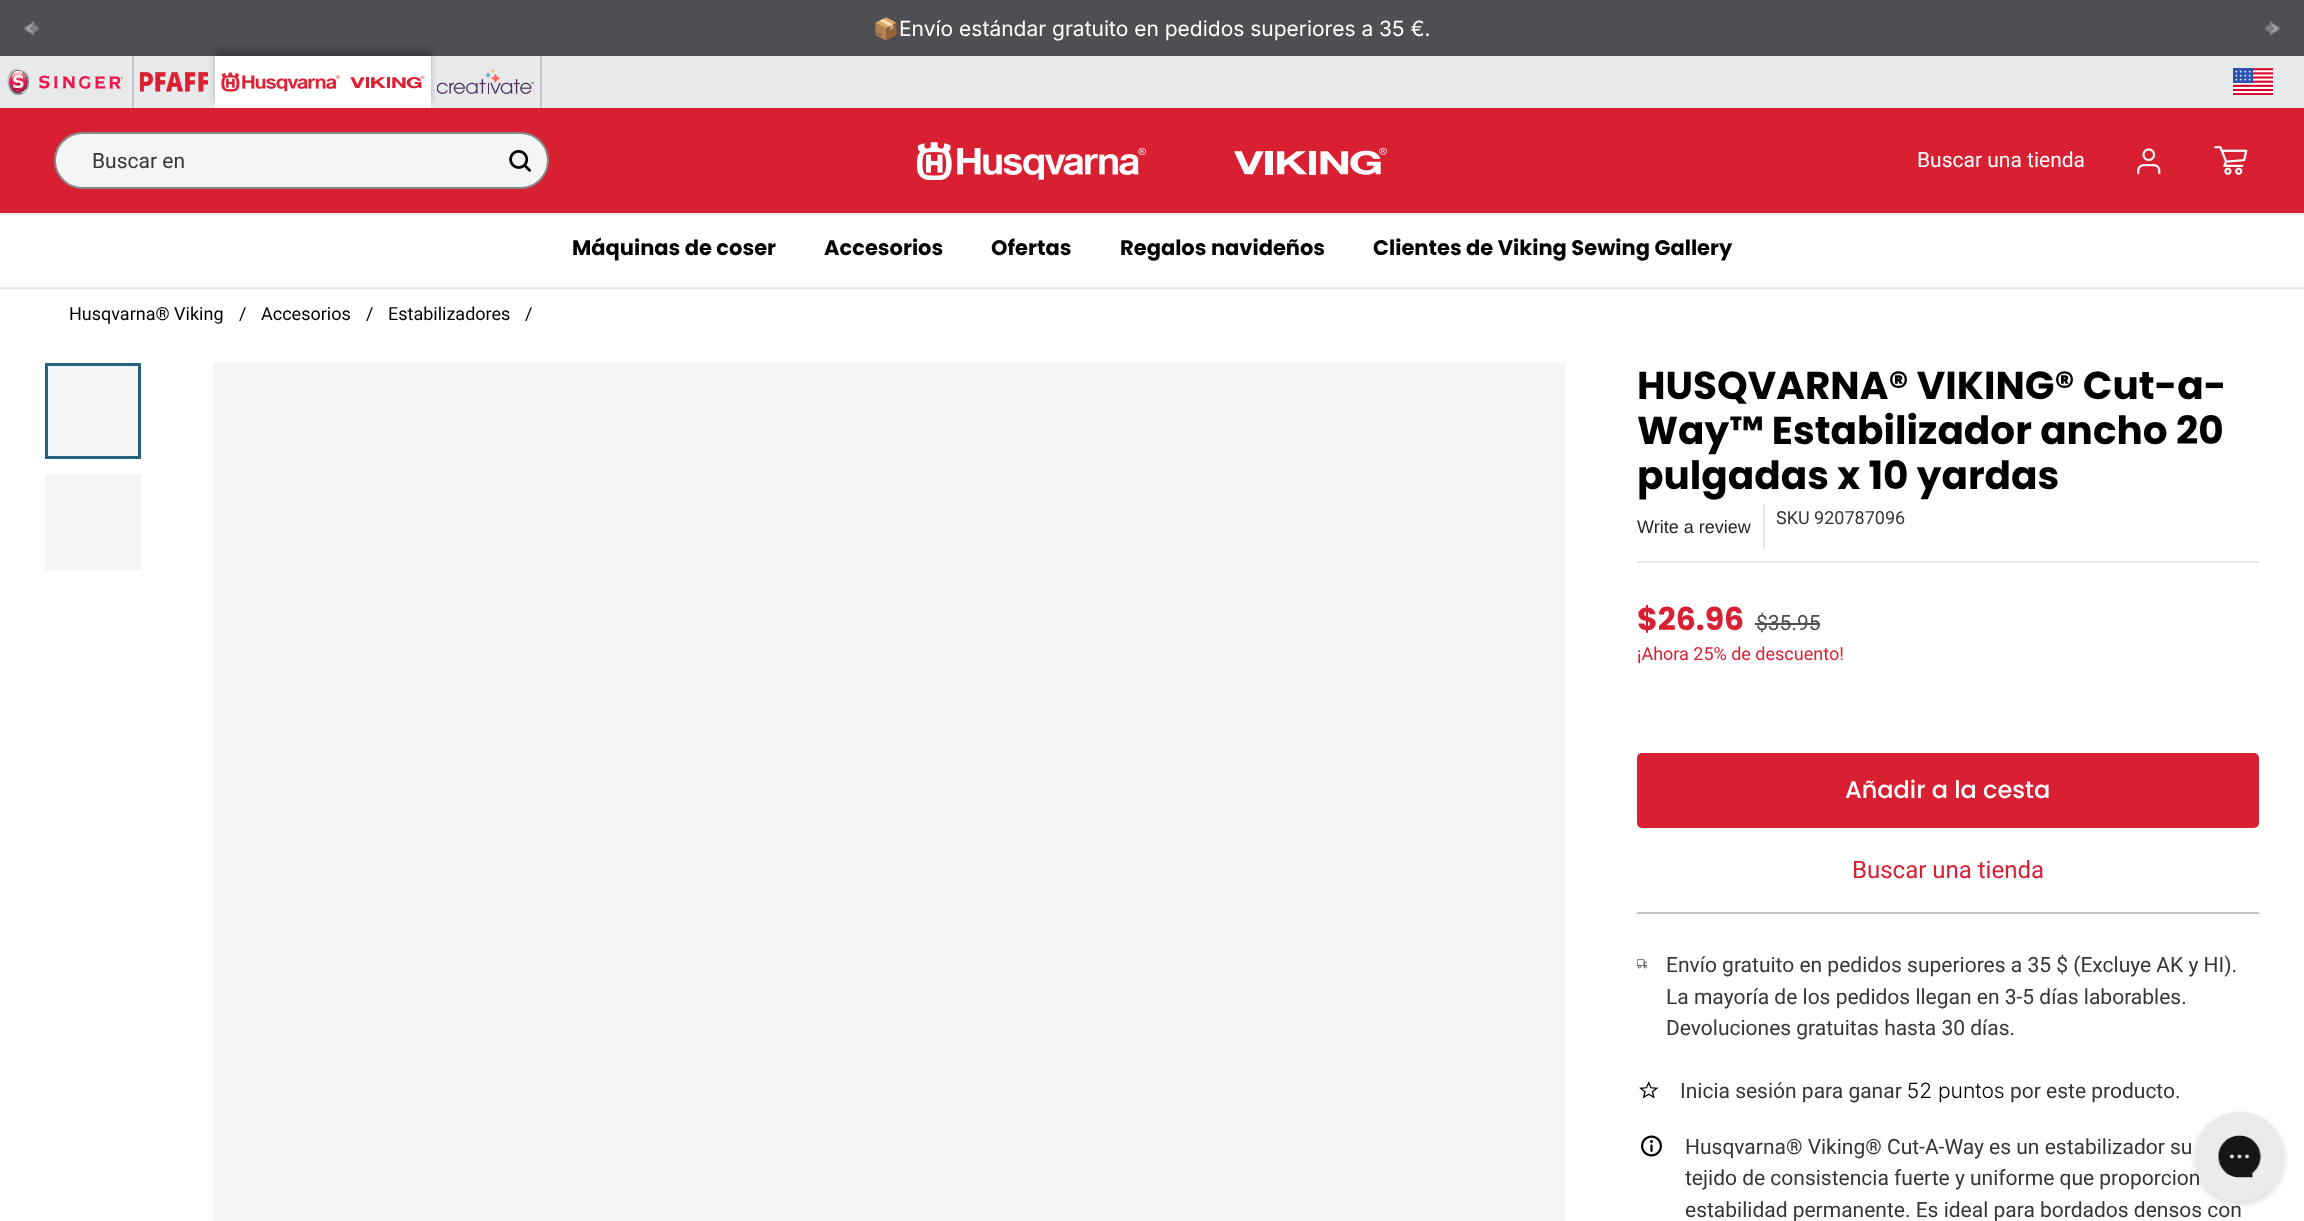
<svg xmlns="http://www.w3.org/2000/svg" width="2304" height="1221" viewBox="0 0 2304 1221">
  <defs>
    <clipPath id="clip1"><path d="M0 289h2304v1H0z"/></clipPath>
  </defs>
  <rect width="100%" height="100%" fill="#fff"/>
  <path d="M0 0h2304v56H0z" fill="#4d4f53"/>
  <ellipse cx="31.5" cy="28.5" rx="7.5" ry="4" fill="#7c7d81"/>
  <image x="26" y="21" width="9" height="15" href="img/1.png"/>
  <ellipse cx="2272.5" cy="28.5" rx="7.5" ry="4" fill="#7c7d81"/>
  <image x="2269" y="21" width="9" height="15" href="img/2.png"/>
  <path d="M0 56h2304v52H0z" fill="#e8e9eb"/>
  <path d="M132 56h2v52H132z" fill="#c6c8cc"/>
  <image x="7" y="68" width="116" height="27" href="img/3.png"/>
  <image x="140" y="72" width="68" height="20" href="img/4.png"/>
  <image x="437" y="69" width="97" height="25" href="img/7.png"/>
  <path d="M215 50h216v52H215z" fill="#00000040" filter="blur(3px)"/>
  <path d="M215 56h216v52H215z" fill="#fff"/>
  <image x="221" y="72" width="119" height="20" href="img/5.png"/>
  <image x="350" y="75" width="75" height="14" href="img/6.png"/>
  <path d="M540 56h2v52H540z" fill="#c6c8cc"/>
  <image x="2233" y="68" width="40" height="27" href="img/8.png"/>
  <path d="M0 108h2304v105H0z" fill="#d92033"/>
  <rect x="55" y="133" width="493" height="55" rx="27.5" fill="#f4f5f7" stroke="#888" stroke-width="2"/>
  <image x="509" y="150" width="22" height="22" href="img/9.png"/>
  <image x="917" y="142" width="470" height="38" href="img/10.png"/>
  <image x="2137" y="148" width="24" height="27" href="img/11.png"/>
  <image x="2214" y="146" width="34" height="29" href="img/12.png"/>
  <g clip-path="url(#clip1)">
    <path d="M0 215h2304v75H0z" fill="#0000000d" filter="blur(1.5px)"/>
  </g>
  <path d="M0 213h2304v2H0z" fill="#e8e9eb"/>
  <path d="M0 287h2304v2H0z" fill="#e8e9eb"/>
  <path d="M46.5 364.5h93v93H46.5z" fill="#f4f5f7" stroke="#27617f" stroke-width="3"/>
  <path d="M45 474h96v96H45z" fill="#f4f5f7"/>
  <path d="M213 363h1352v858H213z" fill="#f4f5f7"/>
  <path d="M1763 504h2v45H1763z" fill="#e8e9eb"/>
  <path d="M1637 561h622v2H1637z" fill="#e8e9eb"/>
  <path d="M1755 623h65v2H1755z" fill="#4d4f53"/>
  <rect x="1637" y="753" width="622" height="75" rx="5" fill="#d92033"/>
  <path d="M1637 912h622v2H1637z" fill="#c6c8cc"/>
  <image x="1637" y="959" width="10" height="10" href="img/13.png"/>
  <image x="1639" y="1081" width="20" height="18" href="img/14.png"/>
  <image x="1641" y="1135" width="21" height="22" href="img/15.png"/>
  <text x="873" y="36" font-family="Noto Color Emoji" font-size="21" fill="#fff">📦</text>
  <text x="899" y="36" font-family="Inter" font-size="21" fill="#fff">Envío estándar gratuito en pedidos superiores a 35 €.</text>
  <text x="92" y="168" font-family="Roboto" font-size="21" fill="#343638">Buscar en</text>
  <text x="1917" y="167" font-family="Roboto" font-size="21" fill="#fff">Buscar una tienda</text>
  <g font-family="Poppins" font-size="21" font-weight="bold" fill="#000">
    <text x="572" y="255">Máquinas de coser</text>
    <text x="824" y="255">Accesorios</text>
    <text x="991" y="255">Ofertas</text>
    <text x="1120" y="255">Regalos navideños</text>
    <text x="1373" y="255">Clientes de Viking Sewing Gallery</text>
  </g>
  <g font-family="Roboto" font-size="18" fill="#000">
    <text x="69" y="320">Husqvarna® Viking</text>
    <text x="239" y="320">/</text>
    <text x="261" y="320">Accesorios</text>
    <text x="366" y="320">/</text>
    <text x="388" y="320">Estabilizadores</text>
    <text x="525" y="320">/</text>
  </g>
  <g font-family="Poppins" font-size="39" font-weight="bold" fill="#000">
    <text x="1637" y="399">HUSQVARNA® VIKING® Cut-a-</text>
    <text x="1637" y="444">Way™ Estabilizador ancho 20</text>
    <text x="1637" y="489">pulgadas x 10 yardas</text>
  </g>
  <text x="1637" y="533" font-family="Liberation Sans" font-size="18" fill="#232627">Write a review</text>
  <text x="1776" y="524" font-family="Roboto" font-size="18" fill="#343638">SKU 920787096</text>
  <text x="1637" y="630" font-family="Poppins" font-size="31.5" font-weight="bold" fill="#d92033">$26.96</text>
  <text x="1756" y="630" font-family="Roboto" font-size="21" fill="#4d4f53">$35.95</text>
  <text x="1637" y="660" font-family="Roboto" font-size="18" fill="#d92033">¡Ahora 25% de descuento!</text>
  <text x="1845" y="798" font-family="Poppins" font-size="24" font-weight="500" fill="#fff">Añadir a la cesta</text>
  <text x="1852" y="878" font-family="Roboto" font-size="24" fill="#d92033">Buscar una tienda</text>
  <g font-family="Roboto" font-size="21" fill="#343638">
    <text x="1666" y="972">Envío gratuito en pedidos superiores a 35 $ (Excluye AK y HI).</text>
    <text x="1666" y="1004">La mayoría de los pedidos llegan en 3-5 días laborables.</text>
    <text x="1666" y="1035">Devoluciones gratuitas hasta 30 días.</text>
    <text x="1680" y="1098">Inicia sesión para ganar</text>
  </g>
  <text x="1907" y="1098" font-family="Inter" font-size="21" font-weight="300" fill="#000">52 puntos</text>
  <g font-family="Roboto" font-size="21" fill="#343638">
    <text x="2010" y="1098">por este producto.</text>
    <text x="1685" y="1154">Husqvarna® Viking® Cut-A-Way es un estabilizador su</text>
    <text x="1685" y="1185">tejido de consistencia fuerte y uniforme que proporcion</text>
    <text x="1685" y="1217">estabilidad permanente. Es ideal para bordados densos con</text>
  </g>
  <image x="2191" y="1111" width="97" height="97" href="img/16.png"/>
</svg>
